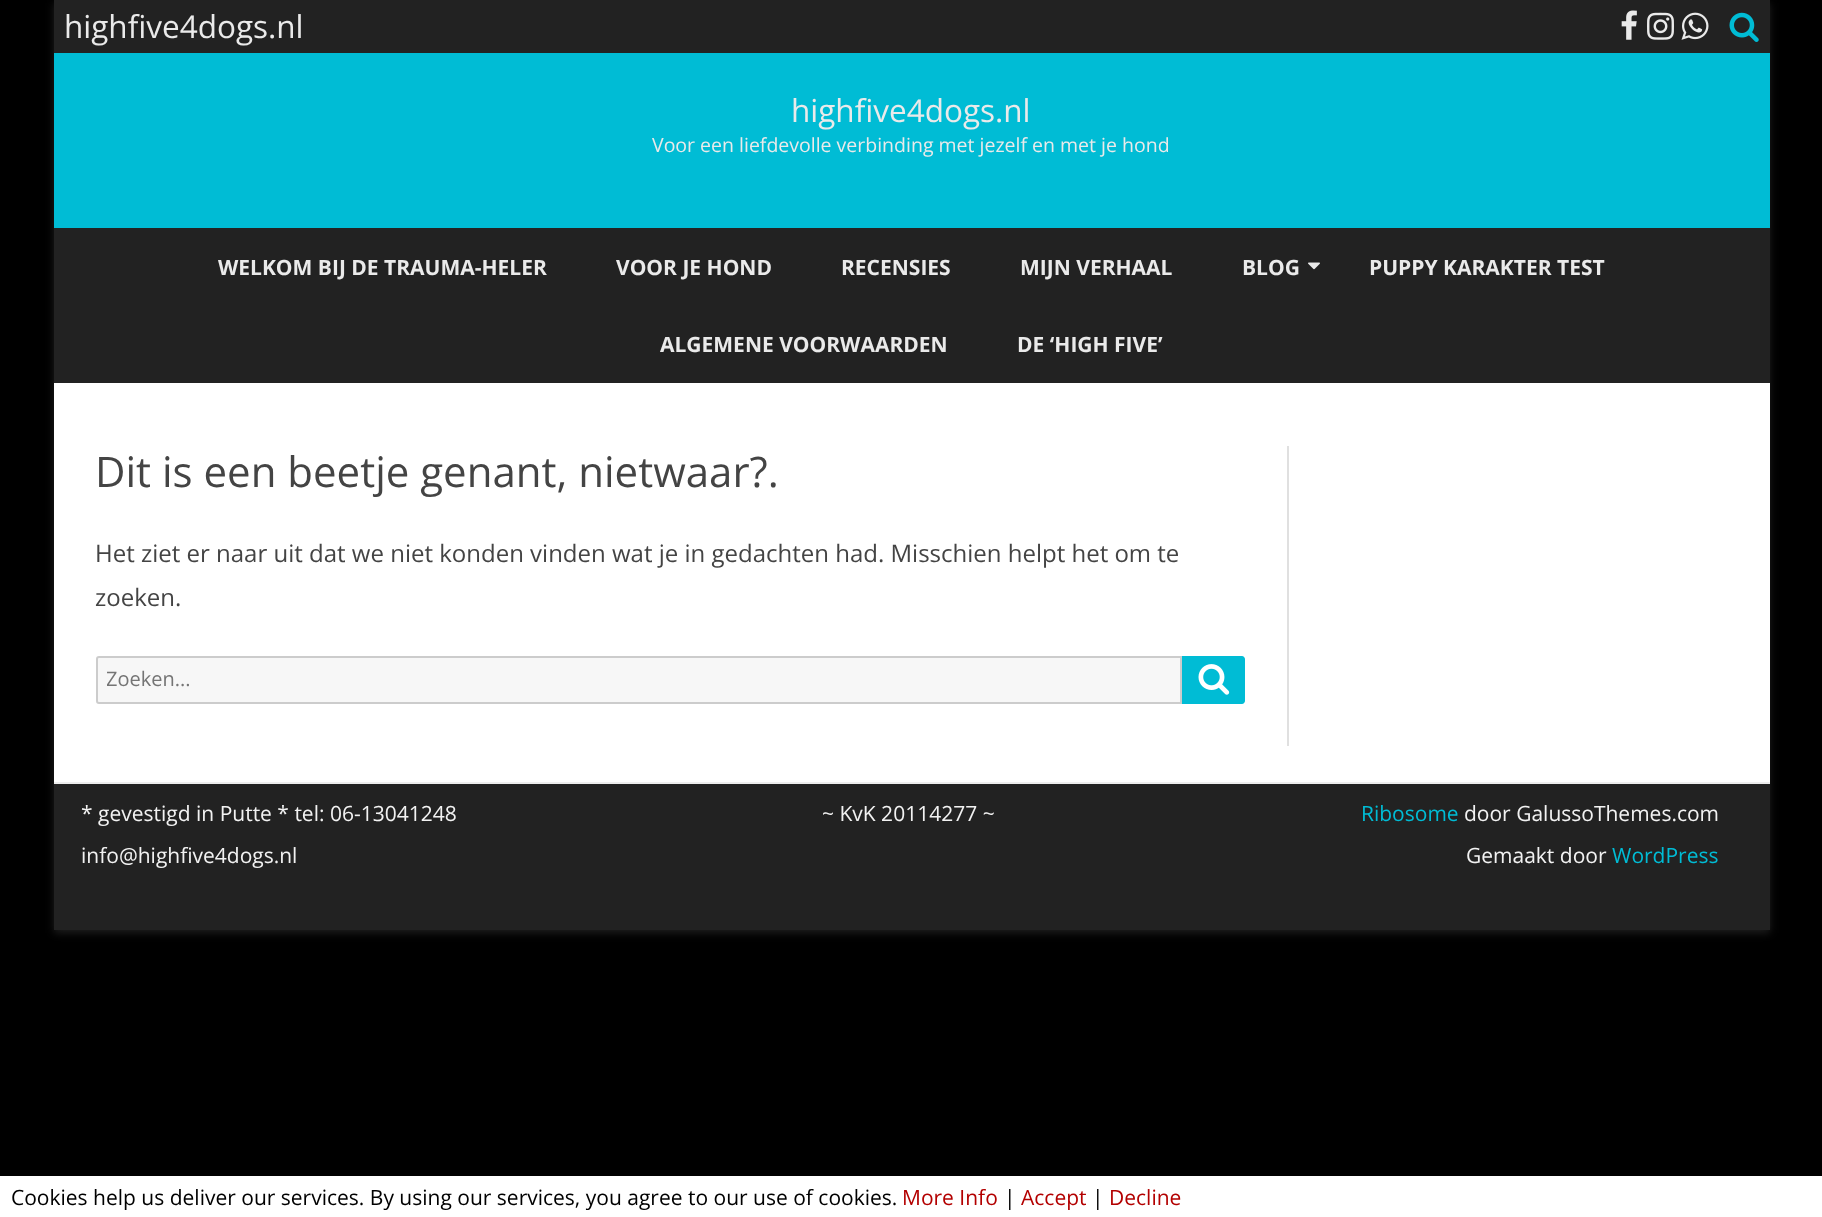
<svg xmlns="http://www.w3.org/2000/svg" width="1822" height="1217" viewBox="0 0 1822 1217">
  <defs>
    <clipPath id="clip1"><path d="M107 666h1045v27H107z"/></clipPath>
  </defs>
  <rect width="100%" height="100%" fill="#000"/>
  <path d="M54 3h1716v930H54z" fill="#6464644d" filter="blur(4.5px)"/>
  <path d="M54 383h1716v399H54z" fill="#fff"/>
  <path d="M54 0h1716v53H54z" fill="#222"/>
  <image x="1621" y="10" width="16" height="30" href="img/1.png"/>
  <image x="1647" y="12" width="27" height="28" href="img/2.png"/>
  <image x="1681" y="12" width="28" height="28" href="img/3.png"/>
  <image x="1729" y="12" width="30" height="30" href="img/4.png"/>
  <path d="M54 53h1716v175H54z" fill="#00bcd5"/>
  <path d="M54 228h1716v155H54z" fill="#222"/>
  <image x="1308" y="262" width="12" height="8" href="img/5.png"/>
  <path d="M1287 446h2v300H1287z" fill="#e0e0e0"/>
  <path d="M99 657H1181V703H99C98 703 97 702 97 701V659C97 658 98 657 99 657Z" fill="#f7f7f7" stroke="#ccc" stroke-width="2"/>
  <path d="M1182 656H1242C1243.5 656 1245 657.5 1245 659V701C1245 702.5 1243.5 704 1242 704H1182Z" fill="#00bcd5"/>
  <image x="1198" y="664" width="32" height="31" href="img/6.png"/>
  <path d="M54 784h1716v146H54z" fill="#222"/>
  <path d="M54 782h1716v2H54z" fill="#ededed"/>
  <path d="M0 1176h1822v41H0z" fill="#fff"/>
  <g font-family="Open Sans" font-size="31.5" fill="#eaeaea">
    <text x="64" y="38">highfive4dogs.nl</text>
    <text x="791" y="122">highfive4dogs.nl</text>
  </g>
  <text x="652" y="152" font-family="Open Sans" font-size="19.5" fill="#eaeaea">Voor een liefdevolle verbinding met jezelf en met je hond</text>
  <g font-family="Open Sans" font-size="21" font-weight="bold" fill="#eaeaea">
    <text x="218" y="275">WELKOM BIJ DE TRAUMA-HELER</text>
    <text x="616" y="275">VOOR JE HOND</text>
    <text x="841" y="275">RECENSIES</text>
    <text x="1020" y="275">MIJN VERHAAL</text>
    <text x="1242" y="275">BLOG</text>
    <text x="1369" y="275">PUPPY KARAKTER TEST</text>
    <text x="660" y="352">ALGEMENE VOORWAARDEN</text>
    <text x="1017" y="352">DE ‘HIGH FIVE’</text>
  </g>
  <text x="95" y="487" font-family="Open Sans" font-size="42" fill="#444">Dit is een beetje genant, nietwaar?.</text>
  <g font-family="Open Sans" font-size="24" fill="#444">
    <text x="95" y="562">Het ziet er naar uit dat we niet konden vinden wat je in gedachten had. Misschien helpt het om te</text>
    <text x="95" y="606">zoeken.</text>
  </g>
  <g clip-path="url(#clip1)">
    <text x="106" y="686" font-family="Open Sans" font-size="20" fill="#757575">Zoeken...</text>
  </g>
  <g font-family="Open Sans" font-size="21" fill="#f2f2f2">
    <text x="81" y="821">* gevestigd in Putte * tel: 06-13041248</text>
    <text x="81" y="863">info@highfive4dogs.nl</text>
    <text x="822" y="821">~ KvK 20114277 ~</text>
  </g>
  <text x="1361" y="821" font-family="Open Sans" font-size="21" fill="#00bcd5">Ribosome</text>
  <g font-family="Open Sans" font-size="21" fill="#f2f2f2">
    <text x="1464" y="821">door GalussoThemes.com</text>
    <text x="1466" y="863">Gemaakt door</text>
  </g>
  <text x="1612" y="863" font-family="Open Sans" font-size="21" fill="#00bcd5">WordPress</text>
  <text x="11" y="1205" font-family="Open Sans" font-size="21" fill="#000">Cookies help us deliver our services. By using our services, you agree to our use of cookies.</text>
  <text x="902" y="1205" font-family="Open Sans" font-size="21" fill="#b30000">More Info</text>
  <text x="1004" y="1205" font-family="Open Sans" font-size="21" fill="#000">|</text>
  <text x="1021" y="1205" font-family="Open Sans" font-size="21" fill="#b30000">Accept</text>
  <text x="1092" y="1205" font-family="Open Sans" font-size="21" fill="#000">|</text>
  <text x="1109" y="1205" font-family="Open Sans" font-size="21" fill="#b30000">Decline</text>
</svg>
